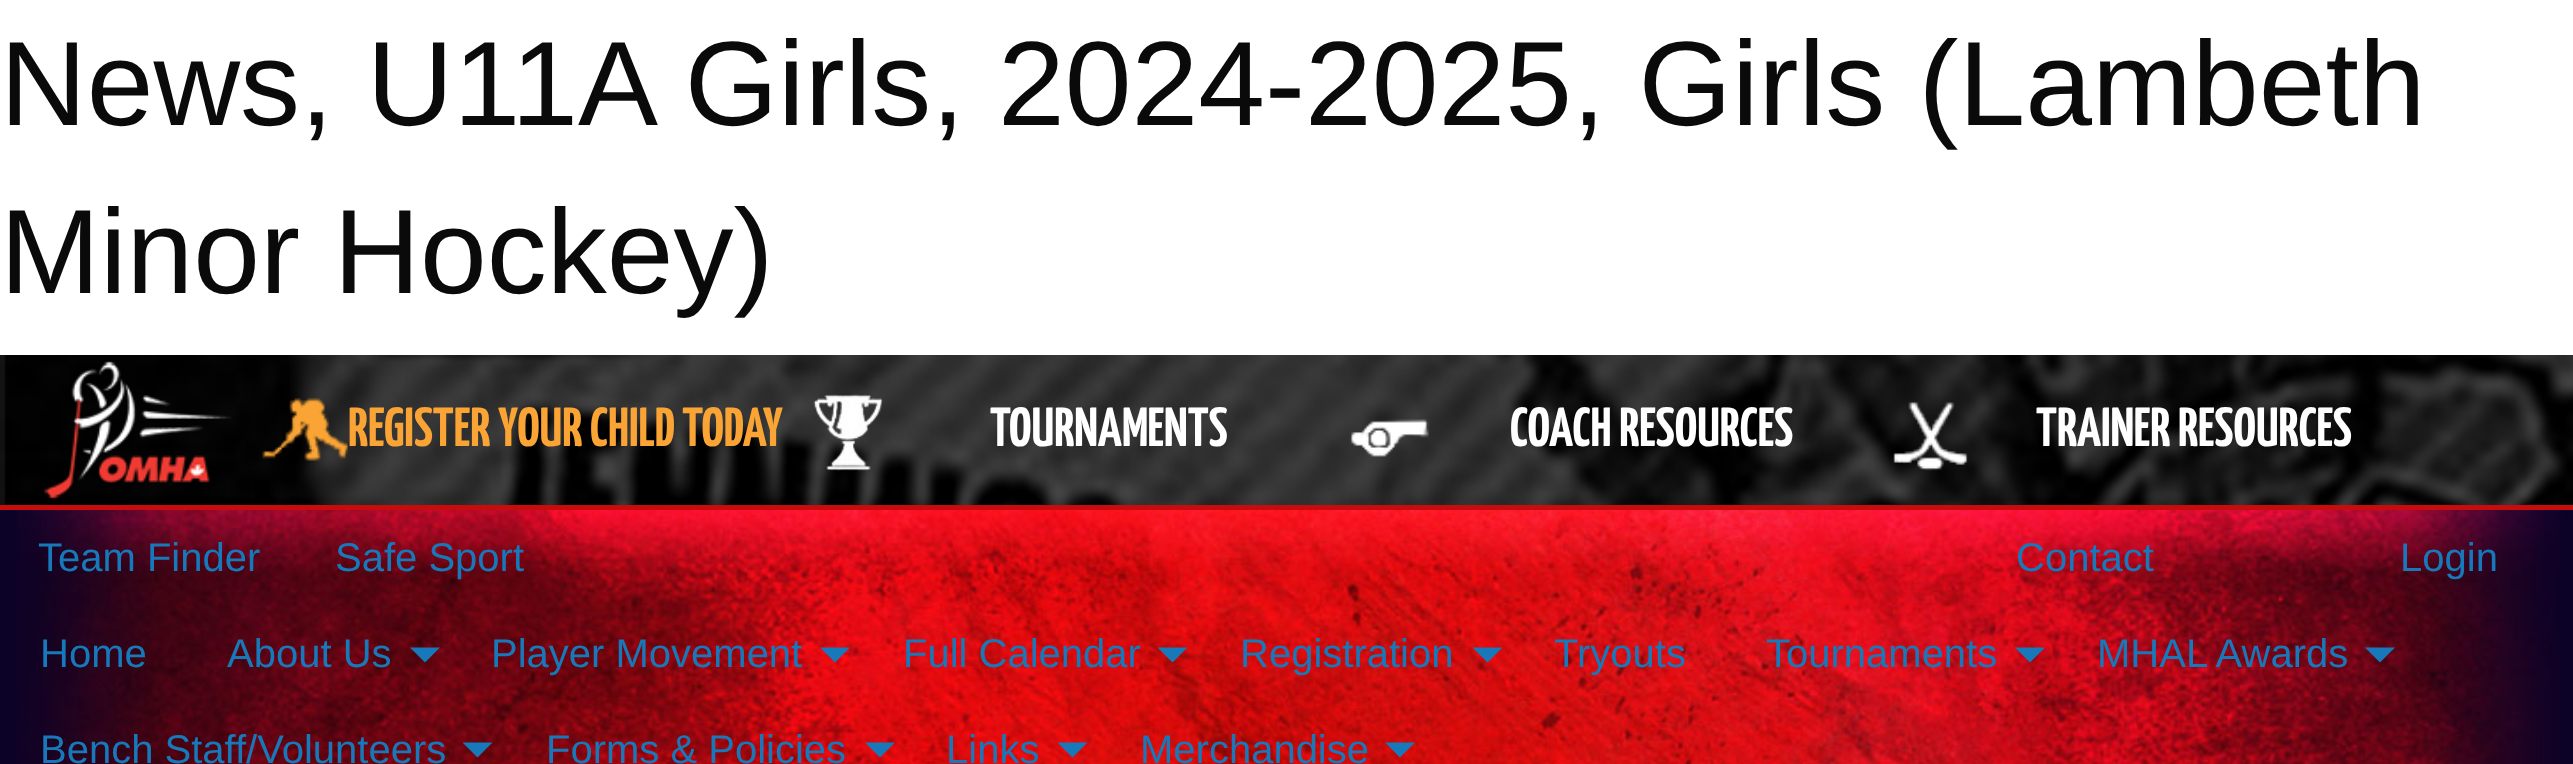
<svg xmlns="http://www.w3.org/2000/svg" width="2573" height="764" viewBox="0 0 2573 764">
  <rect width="100%" height="100%" fill="#fff"/>
  <path d="M0 505h2573v5H0z" fill="#c60c0c"/>
  <image x="0" y="355" width="2573" height="150" href="img/1.png"/>
  <image x="44" y="361" width="188" height="138" href="img/2.png"/>
  <image x="262" y="398" width="86" height="63" href="img/3.png"/>
  <image x="813" y="394" width="70" height="77" href="img/4.png"/>
  <image x="1349" y="419" width="80" height="38" href="img/5.png"/>
  <image x="1893" y="402" width="75" height="69" href="img/6.png"/>
  <path d="M0 510h2573v254H0z" fill="#0c0227"/>
  <image x="17" y="510" width="2544" height="254" href="img/7.png"/>
  <path d="M410 647.5H440L425 662.5Z" fill="#1779ba"/>
  <path d="M820 647.5H850L835 662.5Z" fill="#1779ba"/>
  <path d="M1157.5 647.5H1187.5L1172.5 662.5Z" fill="#1779ba"/>
  <path d="M1472.5 647.5H1502.5L1487.5 662.5Z" fill="#1779ba"/>
  <path d="M2015 647.5H2045L2030 662.5Z" fill="#1779ba"/>
  <path d="M2365 647.5H2395L2380 662.5Z" fill="#1779ba"/>
  <path d="M462.5 742.5H492.5L477.5 757.5Z" fill="#1779ba"/>
  <path d="M865 742.5H895L880 757.5Z" fill="#1779ba"/>
  <path d="M1057.5 742.5H1087.5L1072.5 757.5Z" fill="#1779ba"/>
  <path d="M1385 742.5H1415L1400 757.5Z" fill="#1779ba"/>
  <g font-family="Liberation Sans" font-size="120" fill="#0a0a0a">
    <text x="0" y="125">News, U11A Girls, 2024-2025, Girls (Lambeth</text>
    <text x="0" y="293">Minor Hockey)</text>
  </g>
  <text x="348" y="446" font-family="Yanone Kaffeesatz" font-size="55" font-weight="200" fill="#f9a435">REGISTER YOUR CHILD TODAY</text>
  <g font-family="Yanone Kaffeesatz" font-size="55" font-weight="200" fill="#fff">
    <text x="990" y="446">TOURNAMENTS</text>
    <text x="1510" y="446">COACH RESOURCES</text>
    <text x="2036" y="446">TRAINER RESOURCES</text>
  </g>
  <g font-family="Liberation Sans" font-size="40" fill="#1779ba">
    <text x="38" y="571">Team Finder</text>
    <text x="335" y="571">Safe Sport</text>
    <text x="2016" y="571">Contact</text>
    <text x="2400" y="571">Login</text>
    <text x="40" y="667">Home</text>
    <text x="227" y="667">About Us</text>
    <text x="491" y="667">Player Movement</text>
    <text x="903" y="667">Full Calendar</text>
    <text x="1240" y="667">Registration</text>
    <text x="1554" y="667">Tryouts</text>
    <text x="1766" y="667">Tournaments</text>
    <text x="2097" y="667">MHAL Awards</text>
    <text x="40" y="763">Bench Staff/Volunteers</text>
    <text x="546" y="763">Forms &amp; Policies</text>
    <text x="946" y="763">Links</text>
    <text x="1140" y="763">Merchandise</text>
  </g>
</svg>
